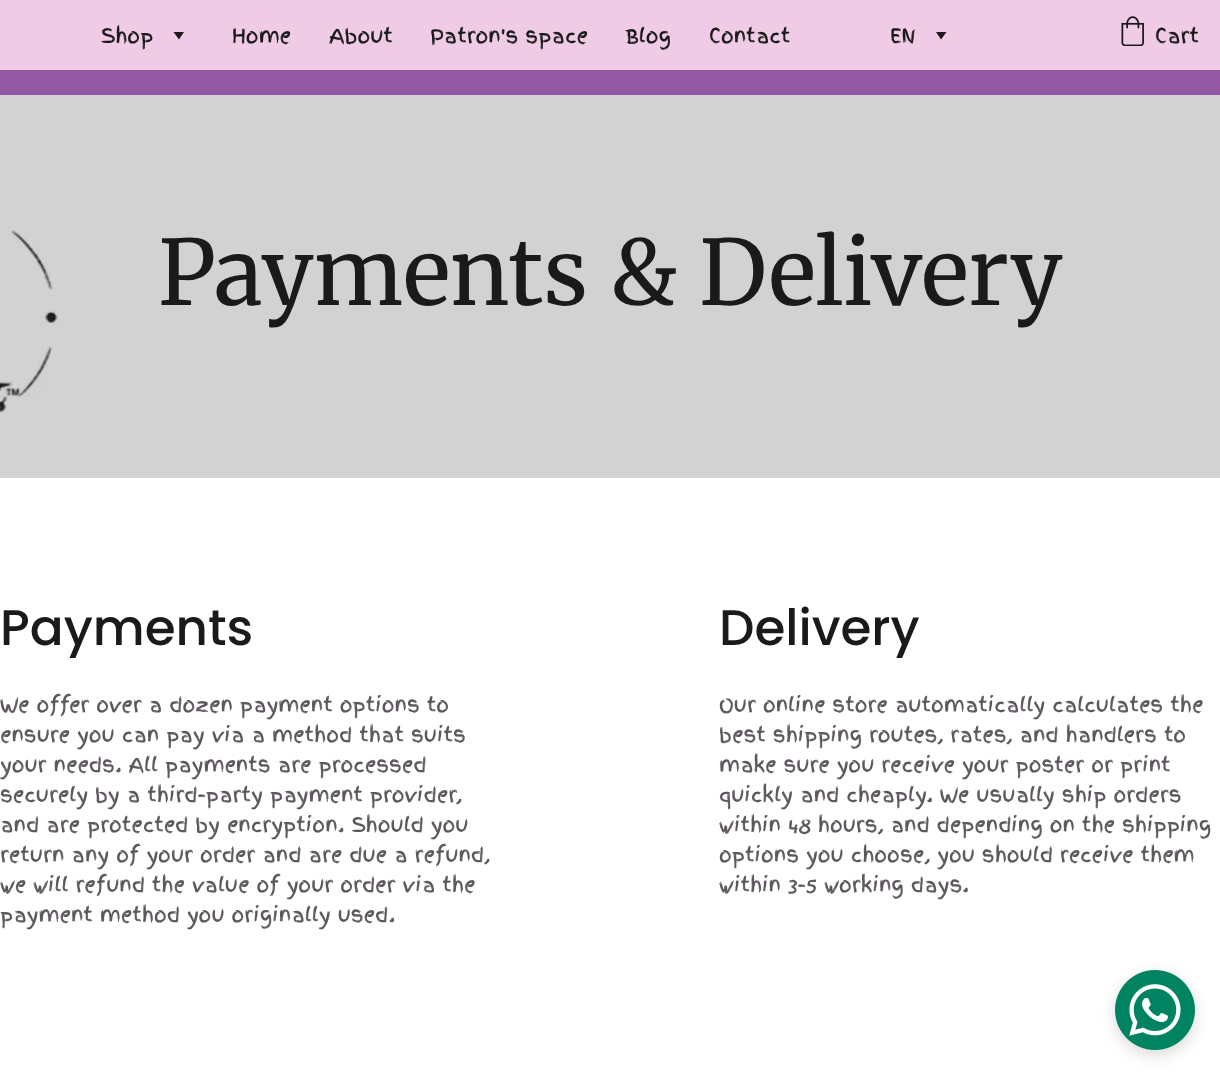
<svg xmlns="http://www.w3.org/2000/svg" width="1220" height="1079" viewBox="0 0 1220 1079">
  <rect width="100%" height="100%" fill="#fff"/>
  <path d="M0 95h1220v383H0z" fill="#d2d2d2"/>
  <path d="M0 0h1220v70H0z" fill="#f0cbe6"/>
  <path d="M179 39.5L173.5 32H184Z" fill="#1a1a1a"/>
  <path d="M941 39.5L936 32H946.5Z" fill="#1a1a1a"/>
  <image x="1121" y="16" width="23" height="30" href="img/1.png"/>
  <path d="M0 70h1220v25H0z" fill="#935aa3"/>
  <image x="0" y="230" width="61" height="183" href="img/2.png"/>
  <rect x="1115" y="975" width="80" height="80" rx="40" fill="#00000026" filter="blur(7.5px)"/>
  <image x="1115" y="970" width="80" height="80" href="img/3.png"/>
  <g font-family="Finger Paint" font-size="20" fill="#1a1a1a">
    <text x="101" y="43">Shop</text>
    <text x="232" y="43">Home</text>
    <text x="329" y="43">About</text>
    <text x="430" y="43">Patron's space</text>
    <text x="625" y="43">Blog</text>
    <text x="709" y="43">Contact</text>
    <text x="890" y="43">EN</text>
    <text x="1155" y="43">Cart</text>
  </g>
  <text x="158" y="305" font-family="Merriweather" font-size="90" font-weight="300" fill="#1a1a1a">Payments &amp; Delivery</text>
  <g font-family="Poppins" font-size="50" font-weight="500" fill="#1a1a1a">
    <text x="0" y="645">Payments</text>
    <text x="719" y="645">Delivery</text>
  </g>
  <g font-family="Finger Paint" font-size="20" fill="#5d575e">
    <text x="0" y="712">We offer over a dozen payment options to</text>
    <text x="0" y="742">ensure you can pay via a method that suits</text>
    <text x="0" y="772">your needs. All payments are processed</text>
    <text x="0" y="802">securely by a third-party payment provider,</text>
    <text x="0" y="832">and are protected by encryption. Should you</text>
    <text x="0" y="862">return any of your order and are due a refund,</text>
    <text x="0" y="892">we will refund the value of your order via the</text>
    <text x="0" y="922">payment method you originally used.</text>
    <text x="719" y="712">Our online store automatically calculates the</text>
    <text x="719" y="742">best shipping routes, rates, and handlers to</text>
    <text x="719" y="772">make sure you receive your poster or print</text>
    <text x="719" y="802">quickly and cheaply. We usually ship orders</text>
    <text x="719" y="832">within 48 hours, and depending on the shipping</text>
    <text x="719" y="862">options you choose, you should receive them</text>
    <text x="719" y="892">within 3-5 working days.</text>
  </g>
</svg>
